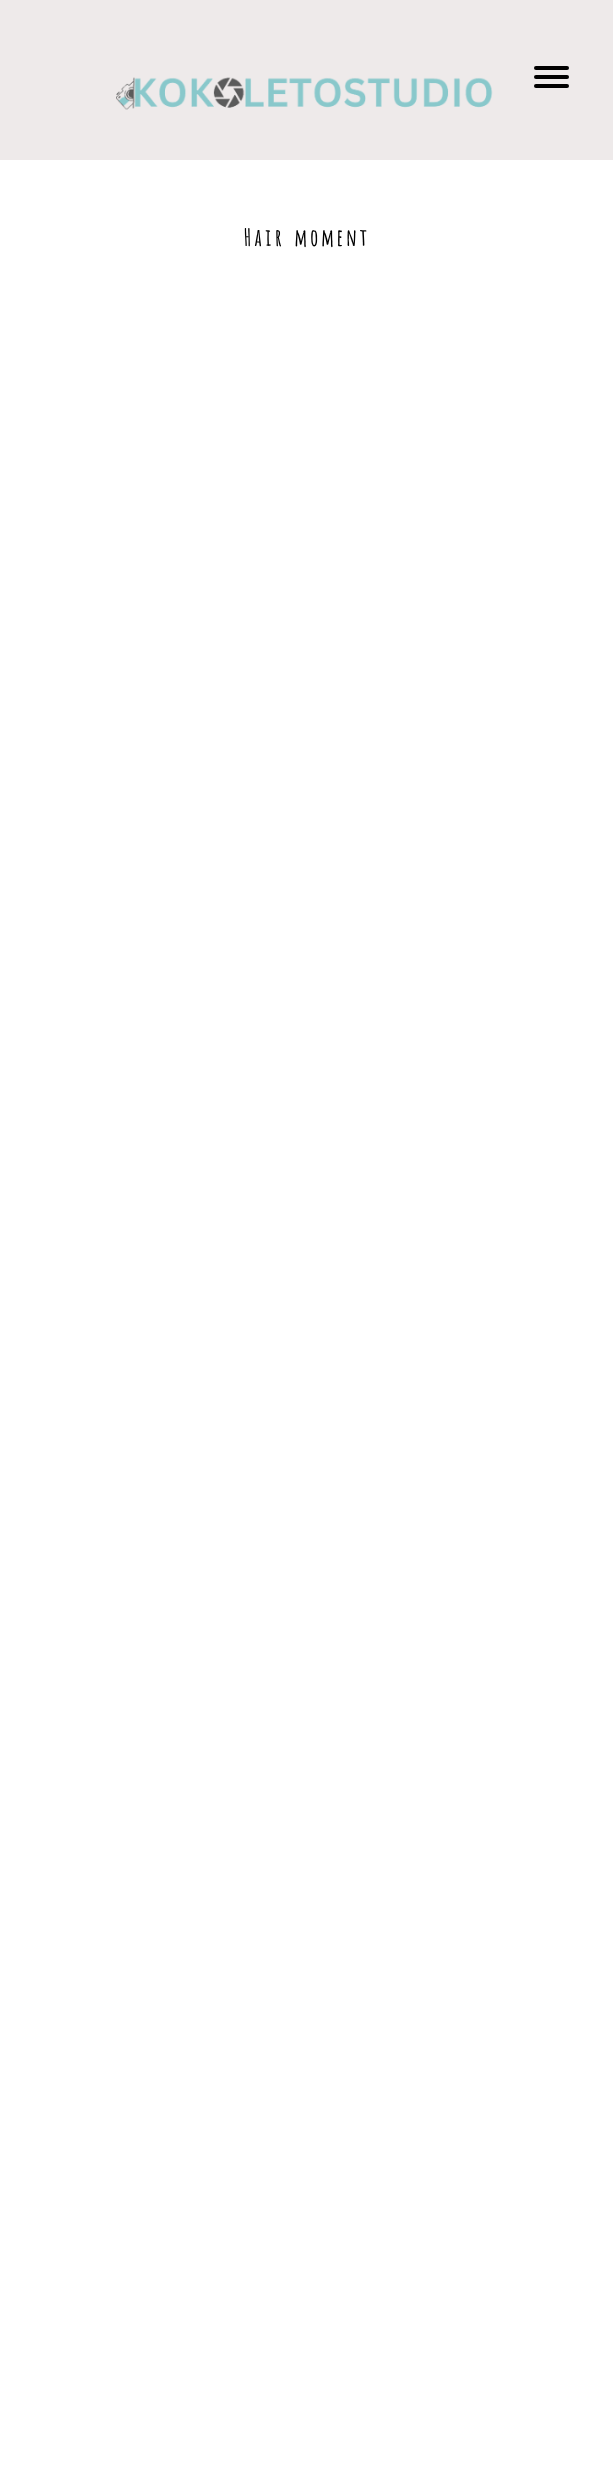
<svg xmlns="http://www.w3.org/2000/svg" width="613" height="2485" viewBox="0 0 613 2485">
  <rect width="100%" height="100%" fill="#fff"/>
  <path d="M0 0h613v160H0z" fill="#eeeaea"/>
  <image x="116" y="77" width="377" height="33" href="img/1.png"/>
  <rect x="534" y="75" width="35" height="4" rx="2" fill="#000"/>
  <rect x="534" y="66" width="35" height="4" rx="2" fill="#000"/>
  <rect x="534" y="84" width="35" height="4" rx="2" fill="#000"/>
  <text x="243" y="246" font-family="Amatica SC" font-size="23" font-weight="bold" letter-spacing="2.25" fill="#000">Hair moment</text>
</svg>
